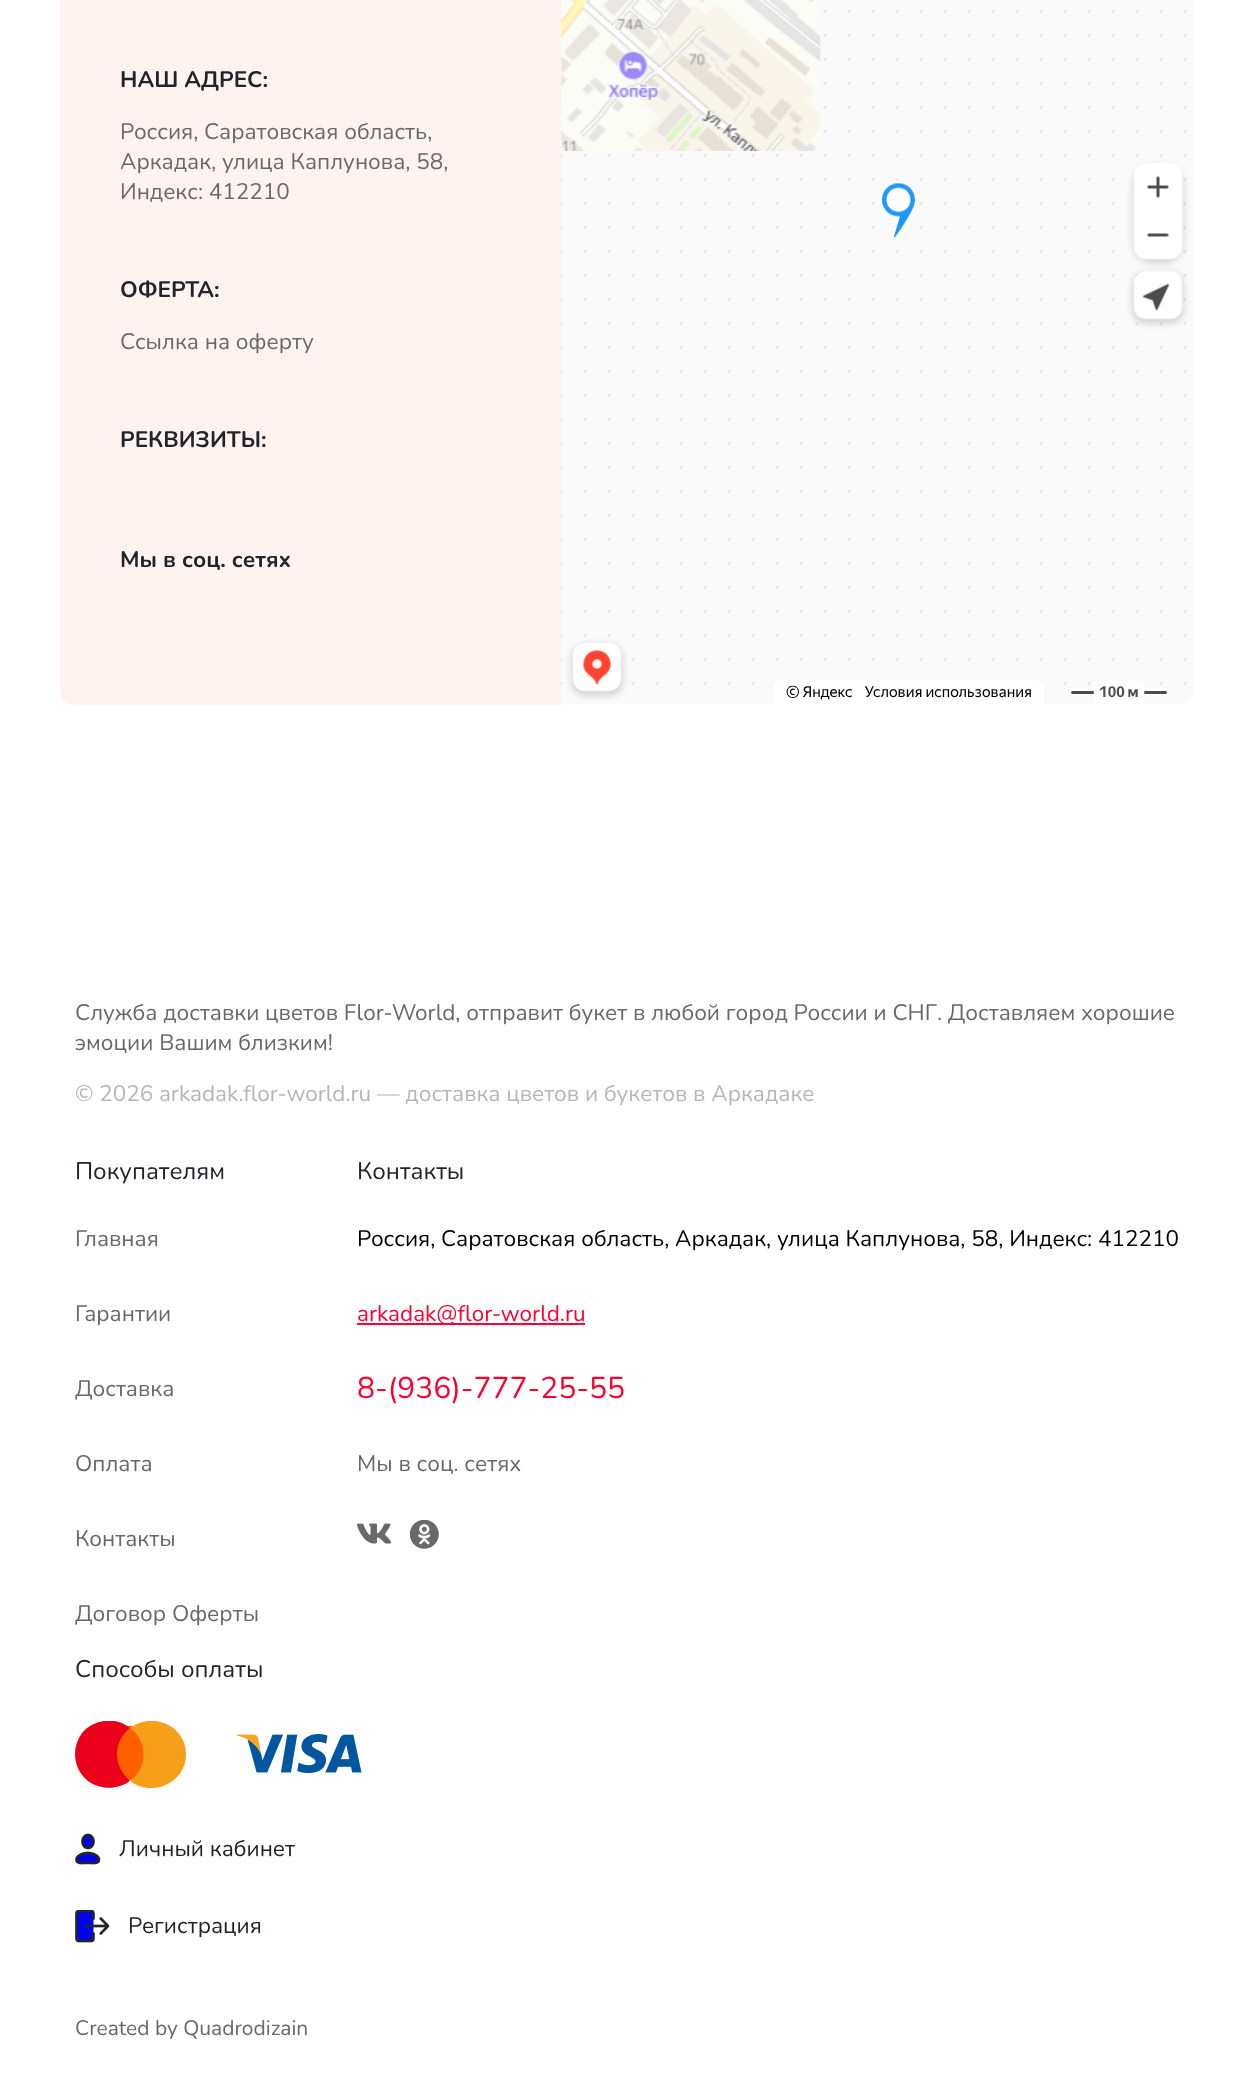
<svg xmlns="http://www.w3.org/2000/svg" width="1253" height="2083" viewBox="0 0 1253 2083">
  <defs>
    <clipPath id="clip1"><path d="M75 1721h117v67H75z"/></clipPath>
  </defs>
  <rect width="100%" height="100%" fill="#fff"/>
  <path d="M75-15H561V705H75C66.5 705 60 698.5 60 690V0C60-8.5 66.5-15 75-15Z" fill="#fff3f1"/>
  <image x="561" y="0" width="633" height="704" href="img/1.png"/>
  <path d="M357 1323h228v2H357z" fill="#f03"/>
  <image x="357" y="1523" width="35" height="21" href="img/2.png"/>
  <image x="410" y="1520" width="29" height="29" href="img/3.png"/>
  <path d="M117 1726h27v54H117z" fill="#ff5f00"/>
  <g clip-path="url(#clip1)">
    <path d="M117 1754C117 1744 122 1734 130 1728C116 1716 94 1719 82 1733C71 1748 73 1769 88 1781C100 1790 118 1790 130 1781C122 1774 117 1765 117 1754Z" fill="#eb001b"/>
    <path d="M186 1754C186 1783 152 1798 130 1781C148 1768 148 1741 130 1728C153 1711 186 1726 186 1754Z" fill="#f79e1b"/>
  </g>
  <image x="237" y="1734" width="125" height="40" href="img/4.png"/>
  <image x="75" y="1833" width="26" height="32" href="img/5.png"/>
  <image x="75" y="1910" width="35" height="33" href="img/6.png"/>
  <text x="120" y="87" font-family="Nunito" font-size="22.5" font-weight="bold" fill="#212529">НАШ АДРЕС:</text>
  <g font-family="Nunito" font-size="22.5" fill="#696969">
    <text x="120" y="139">Россия, Саратовская область,</text>
    <text x="120" y="169">Аркадак, улица Каплунова, 58,</text>
    <text x="120" y="199">Индекс: 412210</text>
  </g>
  <text x="120" y="297" font-family="Nunito" font-size="22.5" font-weight="bold" fill="#212529">ОФЕРТА:</text>
  <text x="120" y="349" font-family="Nunito" font-size="22.5" fill="#696969">Ссылка на оферту</text>
  <g font-family="Nunito" font-size="22.5" font-weight="bold" fill="#212529">
    <text x="120" y="447">РЕКВИЗИТЫ:</text>
    <text x="120" y="567">Мы в соц. сетях</text>
  </g>
  <g font-family="Nunito" font-size="22.5" fill="#696969">
    <text x="75" y="1020">Служба доставки цветов Flor-World, отправит букет в любой город России и СНГ. Доставляем хорошие</text>
    <text x="75" y="1050">эмоции Вашим близким!</text>
  </g>
  <text x="75" y="1101" font-family="Nunito" font-size="22.5" fill="#b6b6b6">© 2026 arkadak.flor-world.ru — доставка цветов и букетов в Аркадаке</text>
  <text x="75" y="1179" font-family="Nunito" font-size="24" fill="#212529">Покупателям</text>
  <g font-family="Nunito" font-size="22.5" fill="#696969">
    <text x="75" y="1246">Главная</text>
    <text x="75" y="1321">Гарантии</text>
    <text x="75" y="1396">Доставка</text>
    <text x="75" y="1471">Оплата</text>
    <text x="75" y="1546">Контакты</text>
    <text x="75" y="1621">Договор Оферты</text>
  </g>
  <text x="357" y="1179" font-family="Nunito" font-size="24" fill="#212529">Контакты</text>
  <text x="357" y="1246" font-family="Nunito" font-size="22.5" fill="#000">Россия, Саратовская область, Аркадак, улица Каплунова, 58, Индекс: 412210</text>
  <text x="357" y="1321" font-family="Nunito" font-size="22.5" fill="#f03">arkadak@flor-world.ru</text>
  <text x="357" y="1398" font-family="Nunito" font-size="30" fill="#f03">8-(936)-777-25-55</text>
  <text x="357" y="1471" font-family="Nunito" font-size="22.5" fill="#696969">Мы в соц. сетях</text>
  <text x="75" y="1677" font-family="Nunito" font-size="24" fill="#212529">Способы оплаты</text>
  <g font-family="Nunito" font-size="22.5" fill="#212529">
    <text x="119" y="1856">Личный кабинет</text>
    <text x="128" y="1933">Регистрация</text>
  </g>
  <text x="75" y="2035" font-family="Nunito" font-size="21" fill="#696969">Created by Quadrodizain</text>
</svg>
